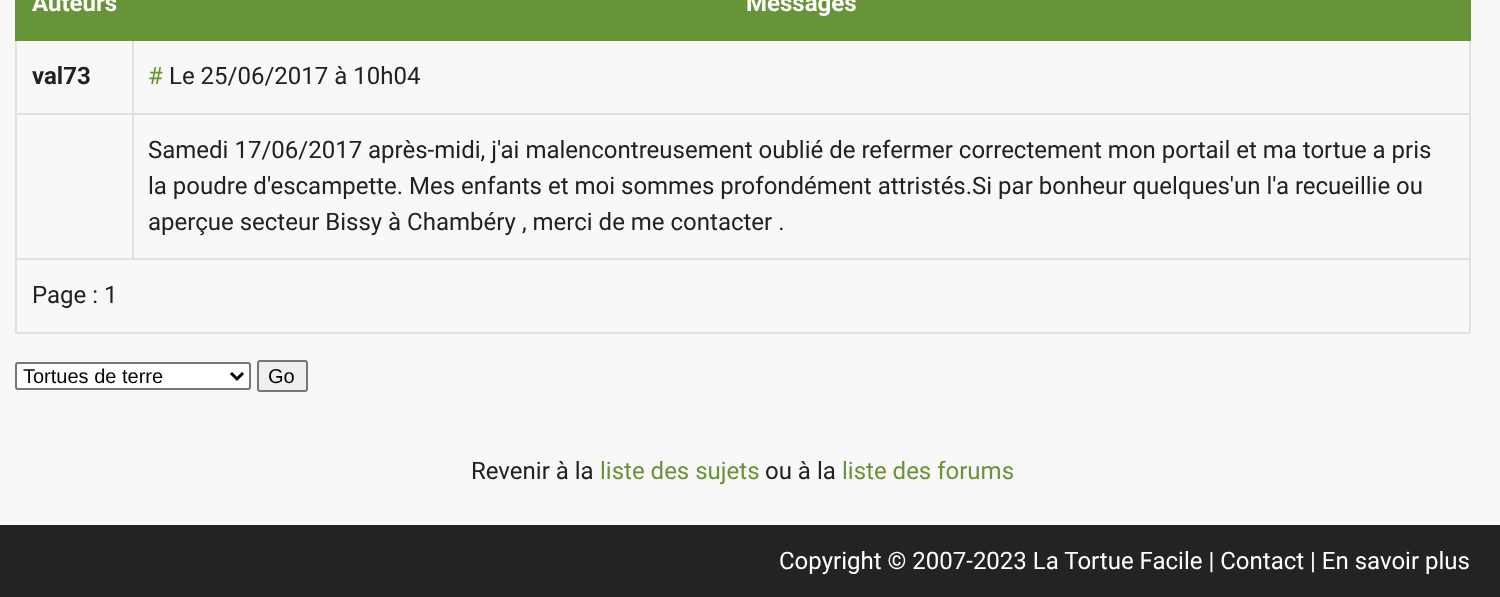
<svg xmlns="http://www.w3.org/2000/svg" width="1500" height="597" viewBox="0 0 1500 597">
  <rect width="100%" height="100%" fill="#f8f8f8"/>
  <path d="M1469 41h2v292H1469z" fill="#e0e0e0"/>
  <path d="M15 332h1455v2H15z" fill="#e0e0e0"/>
  <path d="M15 41h2v292H15z" fill="#e0e0e0"/>
  <path d="M17 0h1452v39H17z" fill="#679436"/>
  <path d="M1469 0h2v41H1469z" fill="#679436"/>
  <path d="M15 113h1455v2H15z" fill="#e0e0e0"/>
  <path d="M15 258h1455v2H15z" fill="#e0e0e0"/>
  <path d="M132 39h2v221H132z" fill="#e0e0e0"/>
  <path d="M15 39h1455v2H15z" fill="#679436"/>
  <path d="M15 0h2v41H15z" fill="#679436"/>
  <rect x="16" y="363" width="234" height="26" rx="2" fill="#fff" stroke="#767676" stroke-width="2"/>
  <path d="M231 373L237 379L243 373" fill="none" stroke="#000" stroke-width="3"/>
  <rect x="258" y="361" width="49" height="30" rx="2" fill="#efefef" stroke="#767676" stroke-width="2"/>
  <path d="M0 525h1500v72H0z" fill="#232323"/>
  <g font-family="Roboto" font-size="24" font-weight="bold" fill="#fff">
    <text x="32" y="11">Auteurs</text>
    <text x="746" y="11">Messages</text>
  </g>
  <text x="32" y="84" font-family="Roboto" font-size="24" font-weight="bold" fill="#212121">val73</text>
  <text x="148" y="84" font-family="Roboto" font-size="24" fill="#679436">#</text>
  <g font-family="Roboto" font-size="24" fill="#212121">
    <text x="169" y="84">Le 25/06/2017 à 10h04</text>
    <text x="148" y="158">Samedi 17/06/2017 après-midi, j'ai malencontreusement oublié de refermer correctement mon portail et ma tortue a pris</text>
    <text x="148" y="194">la poudre d'escampette. Mes enfants et moi sommes profondément attristés.Si par bonheur quelques'un l'a recueillie ou</text>
    <text x="148" y="230">aperçue secteur Bissy à Chambéry , merci de me contacter .</text>
    <text x="32" y="303">Page : 1</text>
  </g>
  <g font-family="Liberation Sans" font-size="20" fill="#000">
    <text x="23" y="383">Tortues de terre</text>
    <text x="268" y="383">Go</text>
  </g>
  <text x="471" y="479" font-family="Roboto" font-size="24" fill="#212121">Revenir à la</text>
  <text x="600" y="479" font-family="Roboto" font-size="24" fill="#679436">liste des sujets</text>
  <text x="765" y="479" font-family="Roboto" font-size="24" fill="#212121">ou à la</text>
  <text x="842" y="479" font-family="Roboto" font-size="24" fill="#679436">liste des forums</text>
  <text x="779" y="569" font-family="Roboto" font-size="24" fill="#fff">Copyright © 2007-2023 La Tortue Facile | Contact | En savoir plus</text>
</svg>
